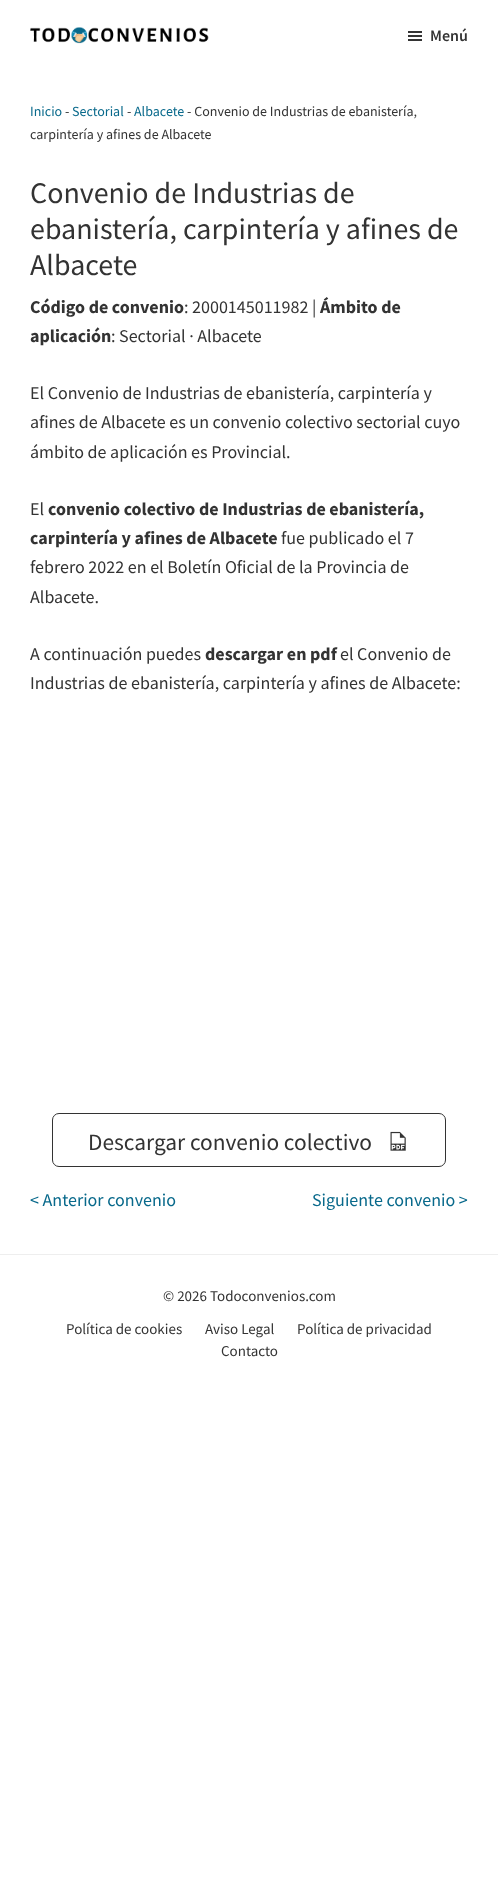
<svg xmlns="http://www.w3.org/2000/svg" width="498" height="1894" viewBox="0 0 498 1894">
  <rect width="100%" height="100%" fill="#fff"/>
  <image x="30" y="27" width="179" height="17" href="img/1.png"/>
  <image x="408" y="31" width="14" height="10" href="img/2.png"/>
  <rect x="52.5" y="1113.5" width="393" height="53" rx="6.5" fill="none" stroke="#333"/>
  <image x="390" y="1131" width="16" height="20" href="img/3.png"/>
  <path d="M0 1254h498v1H0z" fill="#eee"/>
  <text x="430" y="41" font-family="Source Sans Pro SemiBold" font-size="16" font-weight="600" fill="#333">Menú</text>
  <text x="30" y="116" font-family="Source Sans Pro" font-size="14" fill="#08698b">Inicio</text>
  <text x="65" y="116" font-family="Source Sans Pro" font-size="14" fill="#333">-</text>
  <text x="72" y="116" font-family="Source Sans Pro" font-size="14" fill="#08698b">Sectorial</text>
  <text x="127" y="116" font-family="Source Sans Pro" font-size="14" fill="#333">-</text>
  <text x="134" y="116" font-family="Source Sans Pro" font-size="14" fill="#08698b">Albacete</text>
  <g font-family="Source Sans Pro" font-size="14" fill="#333">
    <text x="187" y="116">- Convenio de Industrias de ebanistería,</text>
    <text x="30" y="139">carpintería y afines de Albacete</text>
  </g>
  <g font-family="Source Sans Pro" font-size="30" fill="#333">
    <text x="30" y="203">Convenio de Industrias de</text>
    <text x="30" y="239">ebanistería, carpintería y afines de</text>
    <text x="30" y="275">Albacete</text>
  </g>
  <text x="30" y="313" font-family="Source Sans Pro" font-size="18" font-weight="bold" fill="#333">Código de convenio</text>
  <text x="184" y="313" font-family="Source Sans Pro" font-size="18" fill="#333">: 2000145011982 |</text>
  <g font-family="Source Sans Pro" font-size="18" font-weight="bold" fill="#333">
    <text x="320" y="313">Ámbito de</text>
    <text x="30" y="342">aplicación</text>
  </g>
  <g font-family="Source Sans Pro" font-size="18" fill="#333">
    <text x="111" y="342">: Sectorial · Albacete</text>
    <text x="30" y="399">El Convenio de Industrias de ebanistería, carpintería y</text>
    <text x="30" y="428">afines de Albacete es un convenio colectivo sectorial cuyo</text>
    <text x="30" y="458">ámbito de aplicación es Provincial.</text>
    <text x="30" y="515">El</text>
  </g>
  <g font-family="Source Sans Pro" font-size="18" font-weight="bold" fill="#333">
    <text x="48" y="515">convenio colectivo de Industrias de ebanistería,</text>
    <text x="30" y="544">carpintería y afines de Albacete</text>
  </g>
  <g font-family="Source Sans Pro" font-size="18" fill="#333">
    <text x="281" y="544">fue publicado el 7</text>
    <text x="30" y="573">febrero 2022 en el Boletín Oficial de la Provincia de</text>
    <text x="30" y="603">Albacete.</text>
    <text x="30" y="660">A continuación puedes</text>
  </g>
  <text x="205" y="660" font-family="Source Sans Pro" font-size="18" font-weight="bold" fill="#333">descargar en pdf</text>
  <g font-family="Source Sans Pro" font-size="18" fill="#333">
    <text x="340" y="660">el Convenio de</text>
    <text x="30" y="689">Industrias de ebanistería, carpintería y afines de Albacete:</text>
  </g>
  <text x="88" y="1150" font-family="Source Sans Pro" font-size="23.4" fill="#333">Descargar convenio colectivo</text>
  <g font-family="Source Sans Pro" font-size="18" fill="#08698b">
    <text x="30" y="1206">&lt; Anterior convenio</text>
    <text x="312" y="1206">Siguiente convenio &gt;</text>
  </g>
  <g font-family="Source Sans Pro" font-size="15" fill="#333">
    <text x="163" y="1301">© 2026 Todoconvenios.com</text>
    <text x="66" y="1334">Política de cookies</text>
    <text x="205" y="1334">Aviso Legal</text>
    <text x="297" y="1334">Política de privacidad</text>
    <text x="221" y="1356">Contacto</text>
  </g>
</svg>
